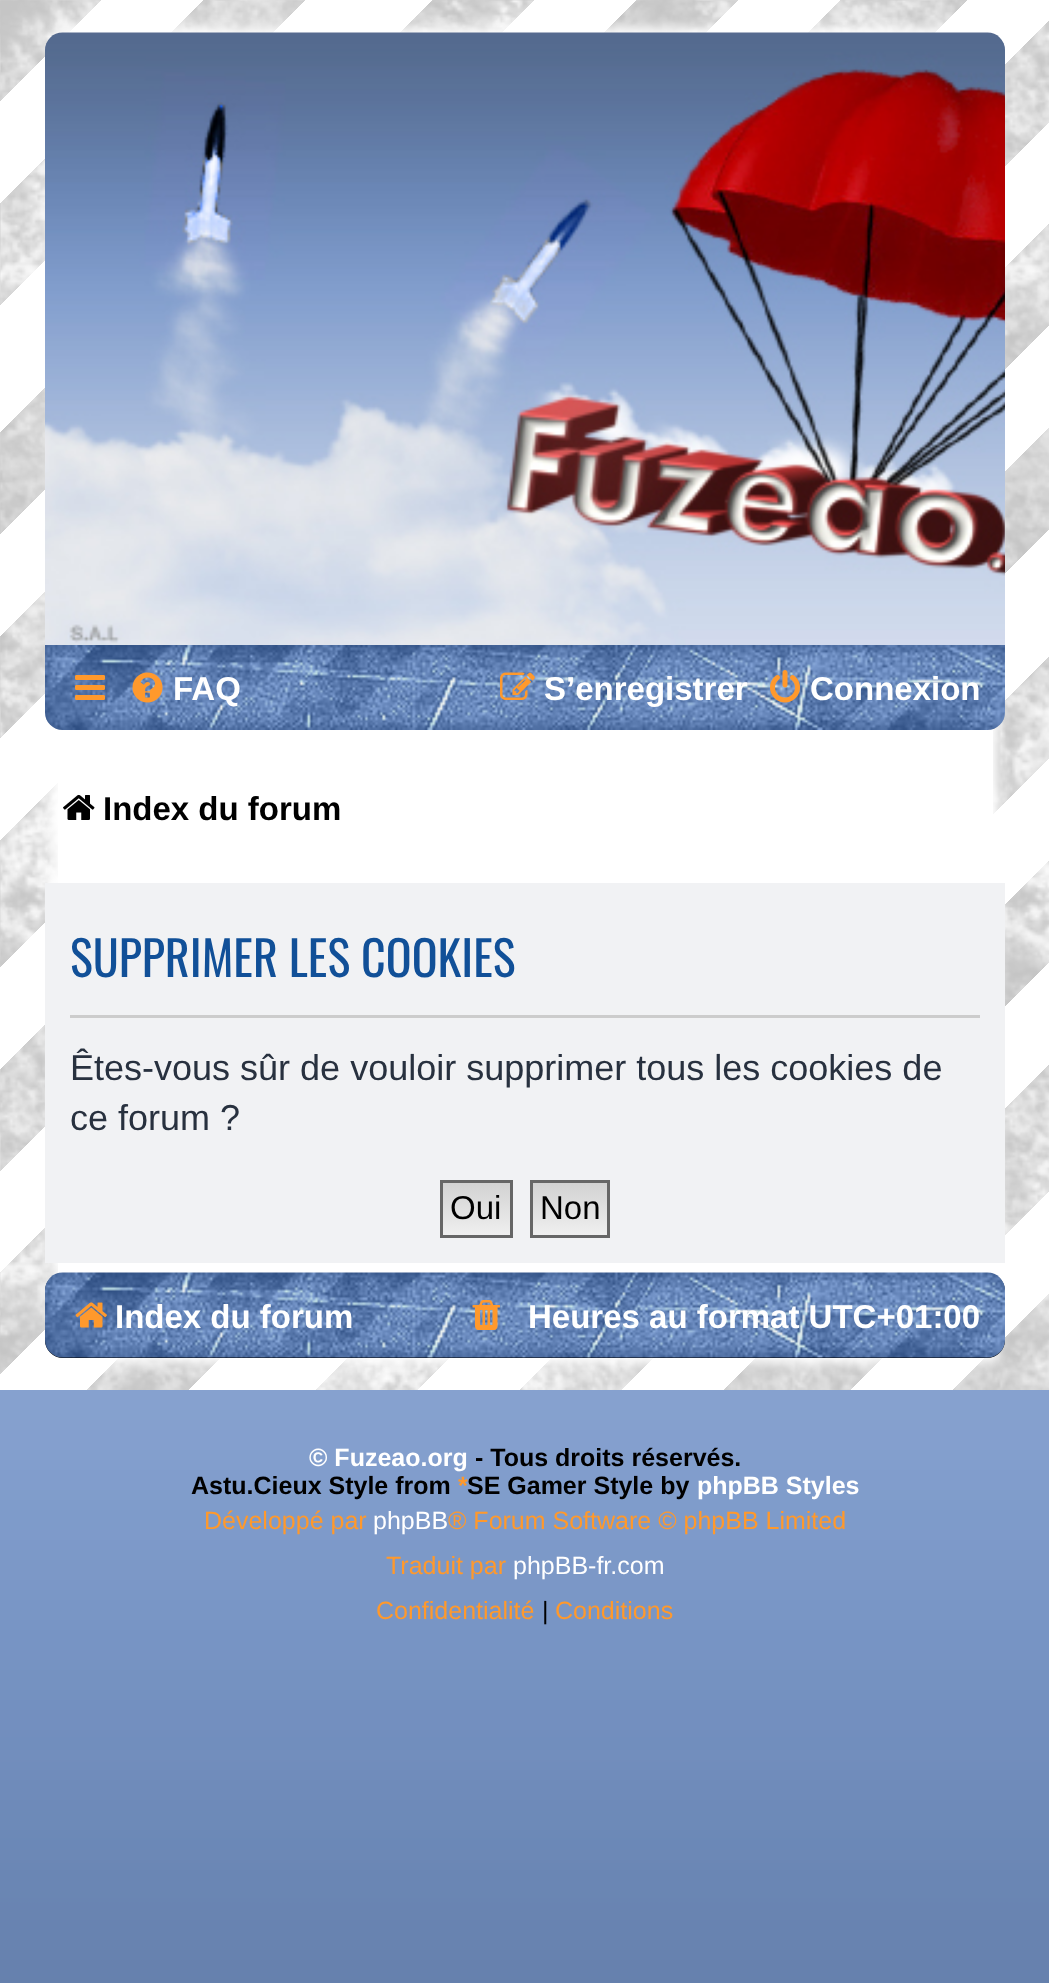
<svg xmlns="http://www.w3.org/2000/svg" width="1049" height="1983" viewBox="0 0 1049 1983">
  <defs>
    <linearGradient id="g1" gradientUnits="userSpaceOnUse" x1="-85" y1="85" x2="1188" y2="1358"><stop offset="0" stop-color="#c5c5c5"/><stop offset="0.04" stop-color="#c5c5c5"/><stop offset="0.04" stop-color="#fff"/><stop offset="0.08" stop-color="#fff"/><stop offset="0.08" stop-color="#c5c5c5"/><stop offset="0.12" stop-color="#c5c5c5"/><stop offset="0.12" stop-color="#fff"/><stop offset="0.17" stop-color="#fff"/><stop offset="0.17" stop-color="#c5c5c5"/><stop offset="0.21" stop-color="#c5c5c5"/><stop offset="0.21" stop-color="#fff"/><stop offset="0.25" stop-color="#fff"/><stop offset="0.25" stop-color="#c5c5c5"/><stop offset="0.29" stop-color="#c5c5c5"/><stop offset="0.29" stop-color="#fff"/><stop offset="0.33" stop-color="#fff"/><stop offset="0.33" stop-color="#c5c5c5"/><stop offset="0.38" stop-color="#c5c5c5"/><stop offset="0.38" stop-color="#fff"/><stop offset="0.42" stop-color="#fff"/><stop offset="0.42" stop-color="#c5c5c5"/><stop offset="0.46" stop-color="#c5c5c5"/><stop offset="0.46" stop-color="#fff"/><stop offset="0.5" stop-color="#fff"/><stop offset="0.5" stop-color="#c5c5c5"/><stop offset="0.54" stop-color="#c5c5c5"/><stop offset="0.54" stop-color="#fff"/><stop offset="0.58" stop-color="#fff"/><stop offset="0.58" stop-color="#c5c5c5"/><stop offset="0.62" stop-color="#c5c5c5"/><stop offset="0.62" stop-color="#fff"/><stop offset="0.67" stop-color="#fff"/><stop offset="0.67" stop-color="#c5c5c5"/><stop offset="0.71" stop-color="#c5c5c5"/><stop offset="0.71" stop-color="#fff"/><stop offset="0.75" stop-color="#fff"/><stop offset="0.75" stop-color="#c5c5c5"/><stop offset="0.79" stop-color="#c5c5c5"/><stop offset="0.79" stop-color="#fff"/><stop offset="0.83" stop-color="#fff"/><stop offset="0.83" stop-color="#c5c5c5"/><stop offset="0.88" stop-color="#c5c5c5"/><stop offset="0.88" stop-color="#fff"/><stop offset="0.92" stop-color="#fff"/><stop offset="0.92" stop-color="#c5c5c5"/><stop offset="0.96" stop-color="#c5c5c5"/><stop offset="0.96" stop-color="#fff"/><stop offset="1" stop-color="#fff"/></linearGradient>
    <linearGradient id="g2" gradientUnits="userSpaceOnUse" x1="476" y1="1183" x2="476" y2="1235"><stop offset="0" stop-color="#d2d2d2"/><stop offset="1" stop-color="#efefef"/></linearGradient>
    <linearGradient id="g3" gradientUnits="userSpaceOnUse" x1="570" y1="1183" x2="570" y2="1235"><stop offset="0" stop-color="#d2d2d2"/><stop offset="1" stop-color="#efefef"/></linearGradient>
  </defs>
  <rect width="100%" height="100%" fill="#fff"/>
  <image x="0" y="1658" width="1049" height="325" href="img/1.png"/>
  <image x="0" y="1390" width="1049" height="268" href="img/2.png"/>
  <path d="M0 0h1049v1390H0z" fill="url(#g1)"/>
  <image x="0" y="0" width="1049" height="1390" href="img/3.png"/>
  <path d="M53 28h945v1335H53z" fill="#fff" filter="blur(6px)"/>
  <path d="M58 33h935v1325H58z" fill="#fff"/>
  <image x="45" y="32" width="960" height="613" href="img/4.png"/>
  <image x="45" y="645" width="960" height="85" href="img/5.png"/>
  <image x="75" y="675" width="30" height="25" href="img/6.png"/>
  <image x="132" y="672" width="31" height="31" href="img/7.png"/>
  <image x="500" y="672" width="35" height="28" href="img/8.png"/>
  <image x="770" y="670" width="30" height="33" href="img/9.png"/>
  <image x="63" y="794" width="32" height="26" href="img/10.png"/>
  <path d="M45 883h960v380H45z" fill="#f1f2f4"/>
  <path d="M70 1015h910v3H70z" fill="#ccc"/>
  <path d="M443 1183h67v52H443z" fill="url(#g2)"/>
  <path d="M441.5 1181.5h70v55H441.5z" fill="none" stroke="#666" stroke-width="3"/>
  <path d="M533 1183h74v52H533z" fill="url(#g3)"/>
  <path d="M531.5 1181.5h77v55H531.5z" fill="none" stroke="#666" stroke-width="3"/>
  <rect x="45" y="1273" width="960" height="85" rx="18" fill="#000"/>
  <image x="45" y="1272" width="960" height="86" href="img/11.png"/>
  <image x="75" y="1302" width="32" height="26" href="img/12.png"/>
  <image x="472" y="1300" width="28" height="30" href="img/13.png"/>
  <g font-family="Liberation Sans" font-size="33" font-weight="bold" fill="#fff">
    <text x="173" y="700">FAQ</text>
    <text x="544" y="700">S’enregistrer</text>
    <text x="810" y="700">Connexion</text>
  </g>
  <text x="103" y="820" font-family="Liberation Sans" font-size="33" font-weight="bold" fill="#000">Index du forum</text>
  <text x="70" y="977" font-family="Oswald" font-size="48" fill="#115098">SUPPRIMER LES COOKIES</text>
  <g font-family="Liberation Sans" font-size="36" fill="#28313f">
    <text x="70" y="1080">Êtes-vous sûr de vouloir supprimer tous les cookies de</text>
    <text x="70" y="1130">ce forum ?</text>
  </g>
  <g font-family="Liberation Sans" font-size="33" fill="#000">
    <text x="450" y="1219">Oui</text>
    <text x="540" y="1219">Non</text>
  </g>
  <g font-family="Liberation Sans" font-size="33" font-weight="bold" fill="#fff">
    <text x="115" y="1328">Index du forum</text>
    <text x="528" y="1328">Heures au format UTC+01:00</text>
  </g>
  <text x="309" y="1466" font-family="Liberation Sans" font-size="25" font-weight="bold" fill="#fff">© Fuzeao.org</text>
  <g font-family="Liberation Sans" font-size="25" font-weight="bold" fill="#000">
    <text x="475" y="1466">- Tous droits réservés.</text>
    <text x="191" y="1494">Astu.Cieux Style from</text>
  </g>
  <text x="458" y="1494" font-family="Liberation Sans" font-size="25" font-weight="bold" fill="#ff992c">*</text>
  <text x="467" y="1494" font-family="Liberation Sans" font-size="25" font-weight="bold" fill="#000">SE Gamer Style by</text>
  <text x="697" y="1494" font-family="Liberation Sans" font-size="25" font-weight="bold" fill="#fff">phpBB Styles</text>
  <text x="204" y="1529" font-family="Liberation Sans" font-size="25" fill="#ff992c">Développé par</text>
  <text x="373" y="1529" font-family="Liberation Sans" font-size="25" fill="#fff">phpBB</text>
  <g font-family="Liberation Sans" font-size="25" fill="#ff992c">
    <text x="448" y="1529">® Forum Software © phpBB Limited</text>
    <text x="386" y="1574">Traduit par</text>
  </g>
  <text x="513" y="1574" font-family="Liberation Sans" font-size="25" fill="#fff">phpBB-fr.com</text>
  <text x="376" y="1619" font-family="Liberation Sans" font-size="25" fill="#ff992c">Confidentialité</text>
  <text x="542" y="1619" font-family="Liberation Sans" font-size="25" fill="#000">|</text>
  <text x="555" y="1619" font-family="Liberation Sans" font-size="25" fill="#ff992c">Conditions</text>
</svg>
